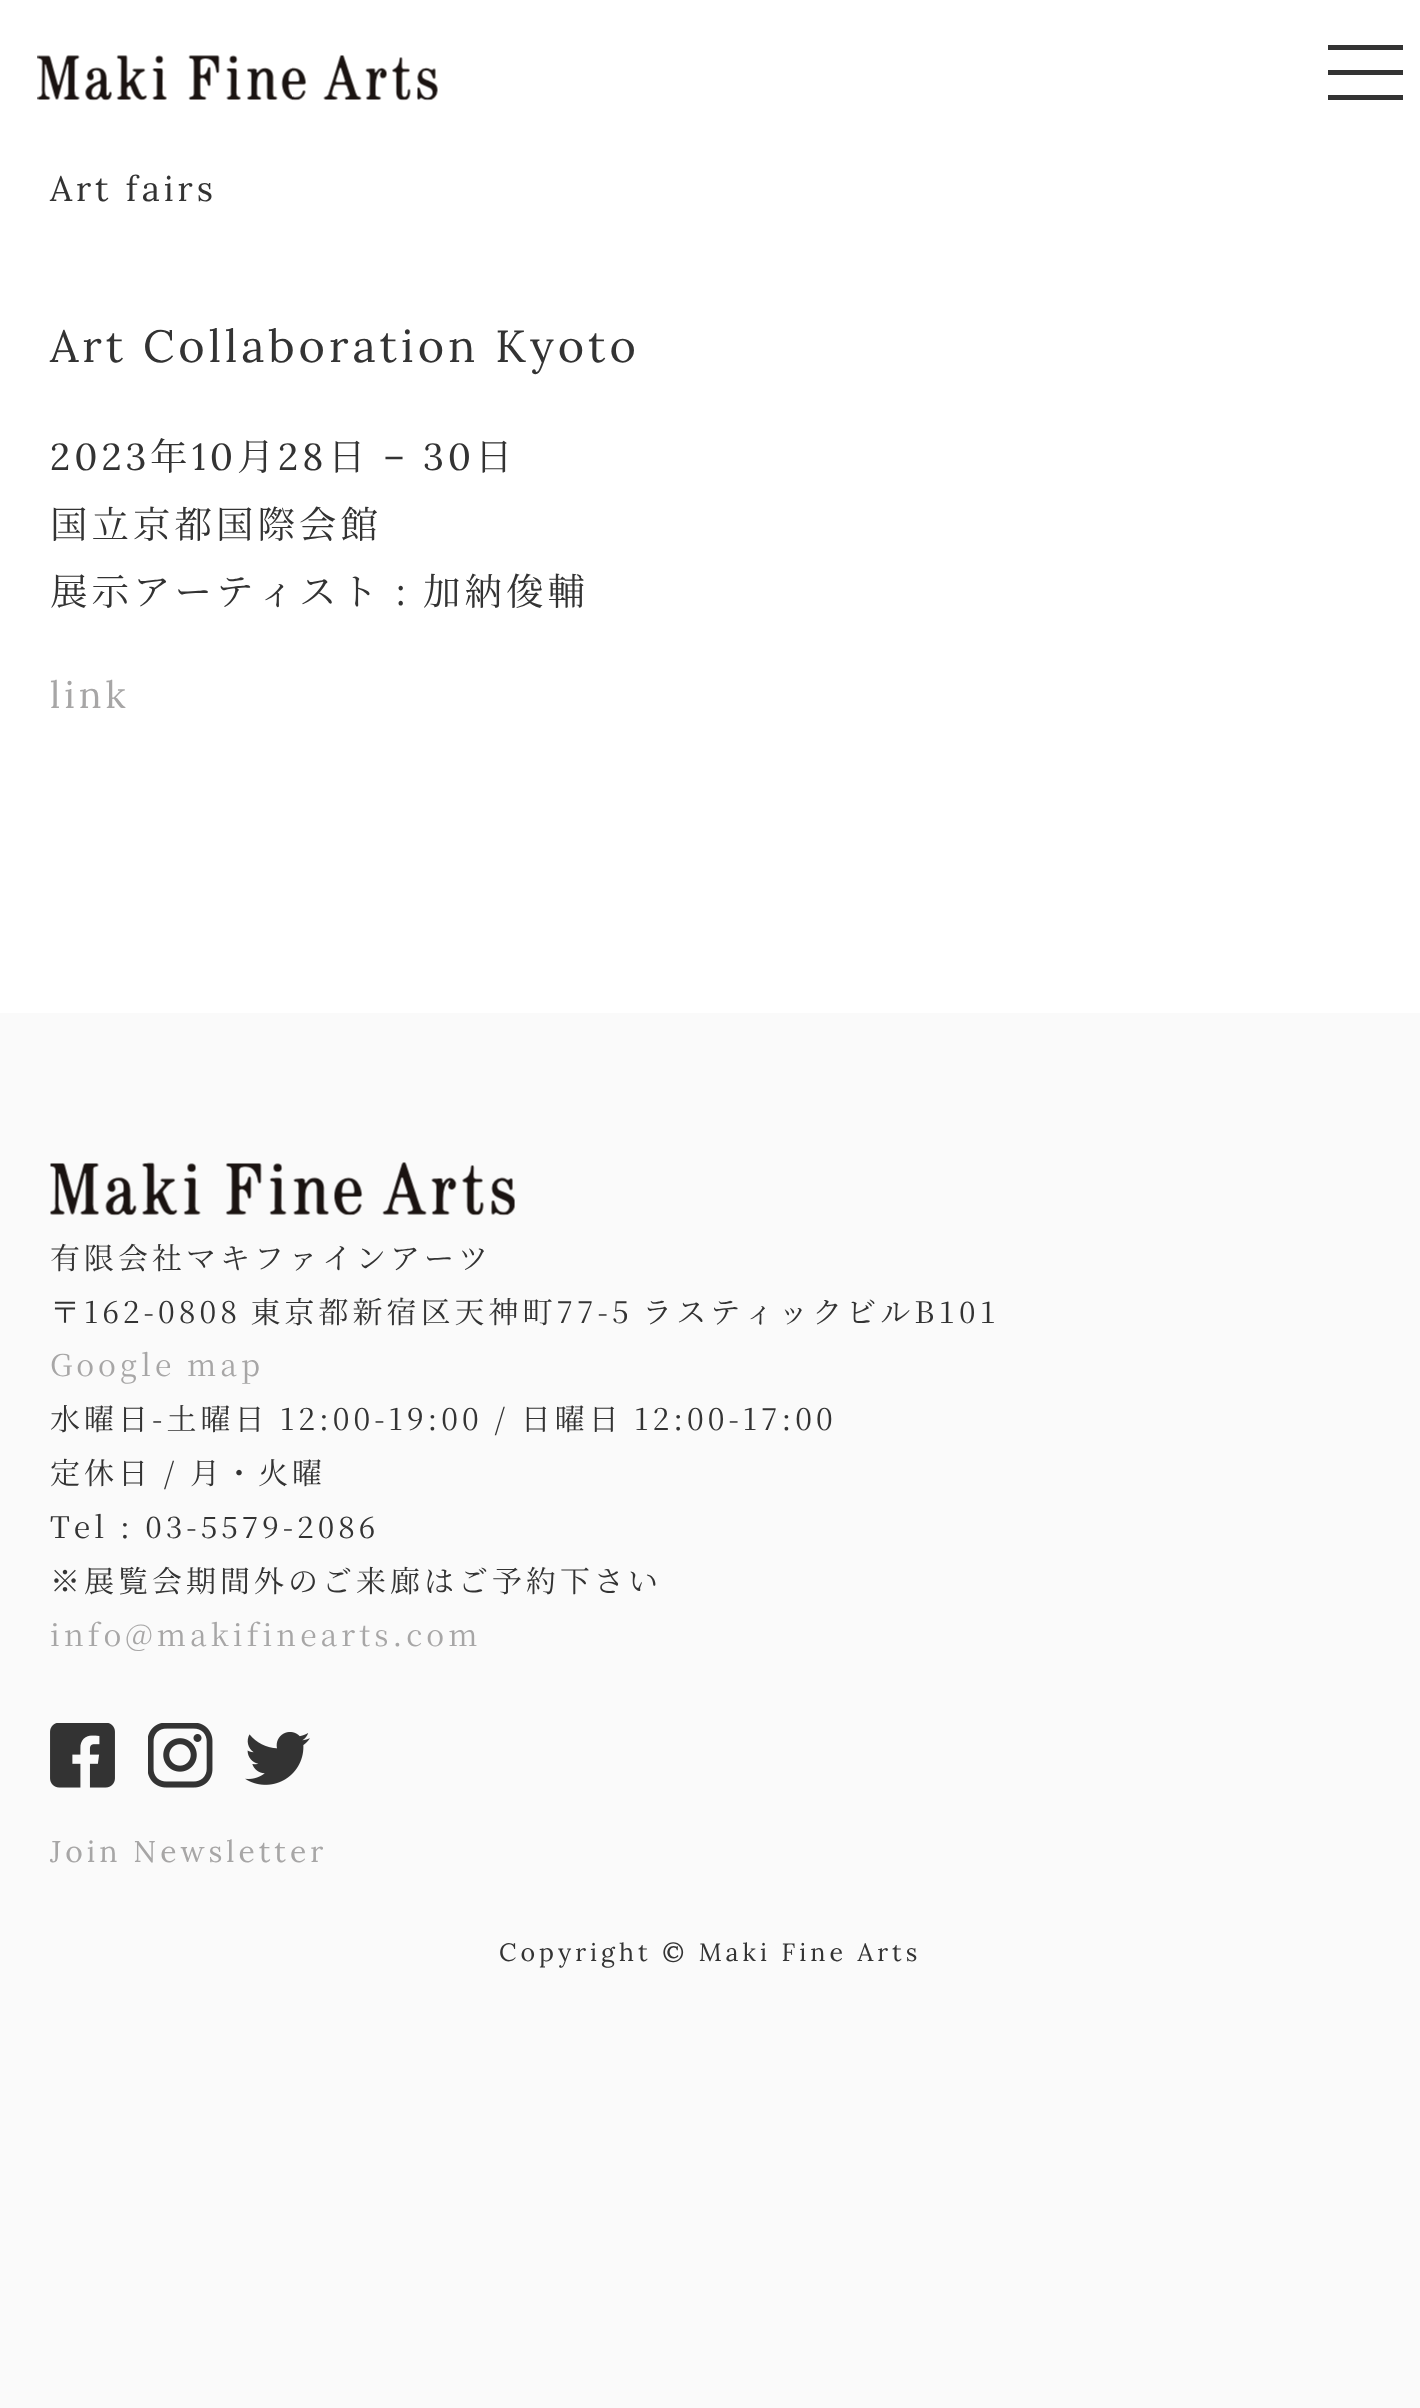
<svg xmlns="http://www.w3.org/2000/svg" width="1420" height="2408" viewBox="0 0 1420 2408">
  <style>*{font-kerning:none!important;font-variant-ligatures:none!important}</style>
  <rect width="100%" height="100%" fill="#fafafa"/>
  <path d="M0 0h1420v1013H0z" fill="#fff"/>
  <image x="37" y="55" width="401" height="46" href="img/1.png"/>
  <path d="M1328 70h75v5H1328z" fill="#333"/>
  <path d="M1328 45h75v5H1328z" fill="#333"/>
  <path d="M1328 95h75v5H1328z" fill="#333"/>
  <image x="50" y="1162" width="465" height="54" href="img/2.png"/>
  <image x="50" y="1723" width="65" height="65" href="img/3.png"/>
  <image x="148" y="1723" width="65" height="65" href="img/4.png"/>
  <image x="245" y="1732" width="65" height="53" href="img/5.png"/>
  <text x="50" y="201" font-family="Lora" font-size="35" letter-spacing="4" fill="#333">Art fairs</text>
  <text x="50" y="362" font-family="Lora" font-size="45" letter-spacing="4" fill="#333">Art Collaboration Kyoto</text>
  <text x="50" y="470" font-family="Lora" font-size="37.5" letter-spacing="4" fill="#333">2023</text>
  <text x="150" y="470" font-family="Noto Serif JP" font-size="37.5" letter-spacing="4" fill="#333">年</text>
  <text x="192" y="470" font-family="Lora" font-size="37.5" letter-spacing="4" fill="#333">10</text>
  <text x="237" y="470" font-family="Noto Serif JP" font-size="37.5" letter-spacing="4" fill="#333">月</text>
  <text x="278" y="470" font-family="Lora" font-size="37.5" letter-spacing="4" fill="#333">28</text>
  <text x="328" y="470" font-family="Noto Serif JP" font-size="37.5" letter-spacing="4" fill="#333">日</text>
  <text x="383" y="470" font-family="Lora" font-size="37.5" letter-spacing="4" fill="#333">– 30</text>
  <g font-family="Noto Serif JP" font-size="37.5" letter-spacing="4" fill="#333">
    <text x="475" y="470">日</text>
    <text x="50" y="538">国立京都国際会館</text>
    <text x="50" y="605">展示アーティスト</text>
  </g>
  <text x="396" y="605" font-family="Lora" font-size="37.5" letter-spacing="4" fill="#333">:</text>
  <text x="423" y="605" font-family="Noto Serif JP" font-size="37.5" letter-spacing="4" fill="#333">加納俊輔</text>
  <text x="50" y="708" font-family="Lora" font-size="37.5" letter-spacing="4" fill="#a7a6a6">link</text>
  <g font-family="Noto Serif JP" font-size="30" letter-spacing="4" fill="#333">
    <text x="50" y="1269">有限会社マキファインアーツ</text>
    <text x="50" y="1323" word-spacing="-2">〒162-0808 東京都新宿区天神町77-5 ラスティックビルB101</text>
  </g>
  <text x="50" y="1376" font-family="Noto Serif JP" font-size="30" letter-spacing="4" fill="#a7a6a6">Google map</text>
  <g font-family="Noto Serif JP" font-size="30" letter-spacing="4" fill="#333">
    <text x="50" y="1430">水曜日-土曜日 12:00-19:00 / 日曜日 12:00-17:00</text>
    <text x="50" y="1484">定休日 / 月・火曜</text>
    <text x="50" y="1538">Tel : 03-5579-2086</text>
    <text x="50" y="1592">※展覧会期間外のご来廊はご予約下さい</text>
  </g>
  <text x="50" y="1646" font-family="Noto Serif JP" font-size="30" letter-spacing="4" fill="#a7a6a6">info@makifinearts.com</text>
  <text x="50" y="1862" font-family="Lora" font-size="30" letter-spacing="4" fill="#a7a6a6">Join Newsletter</text>
  <text x="499" y="1961" font-family="Lora" font-size="25" letter-spacing="4" fill="#333">Copyright © Maki Fine Arts</text>
</svg>
